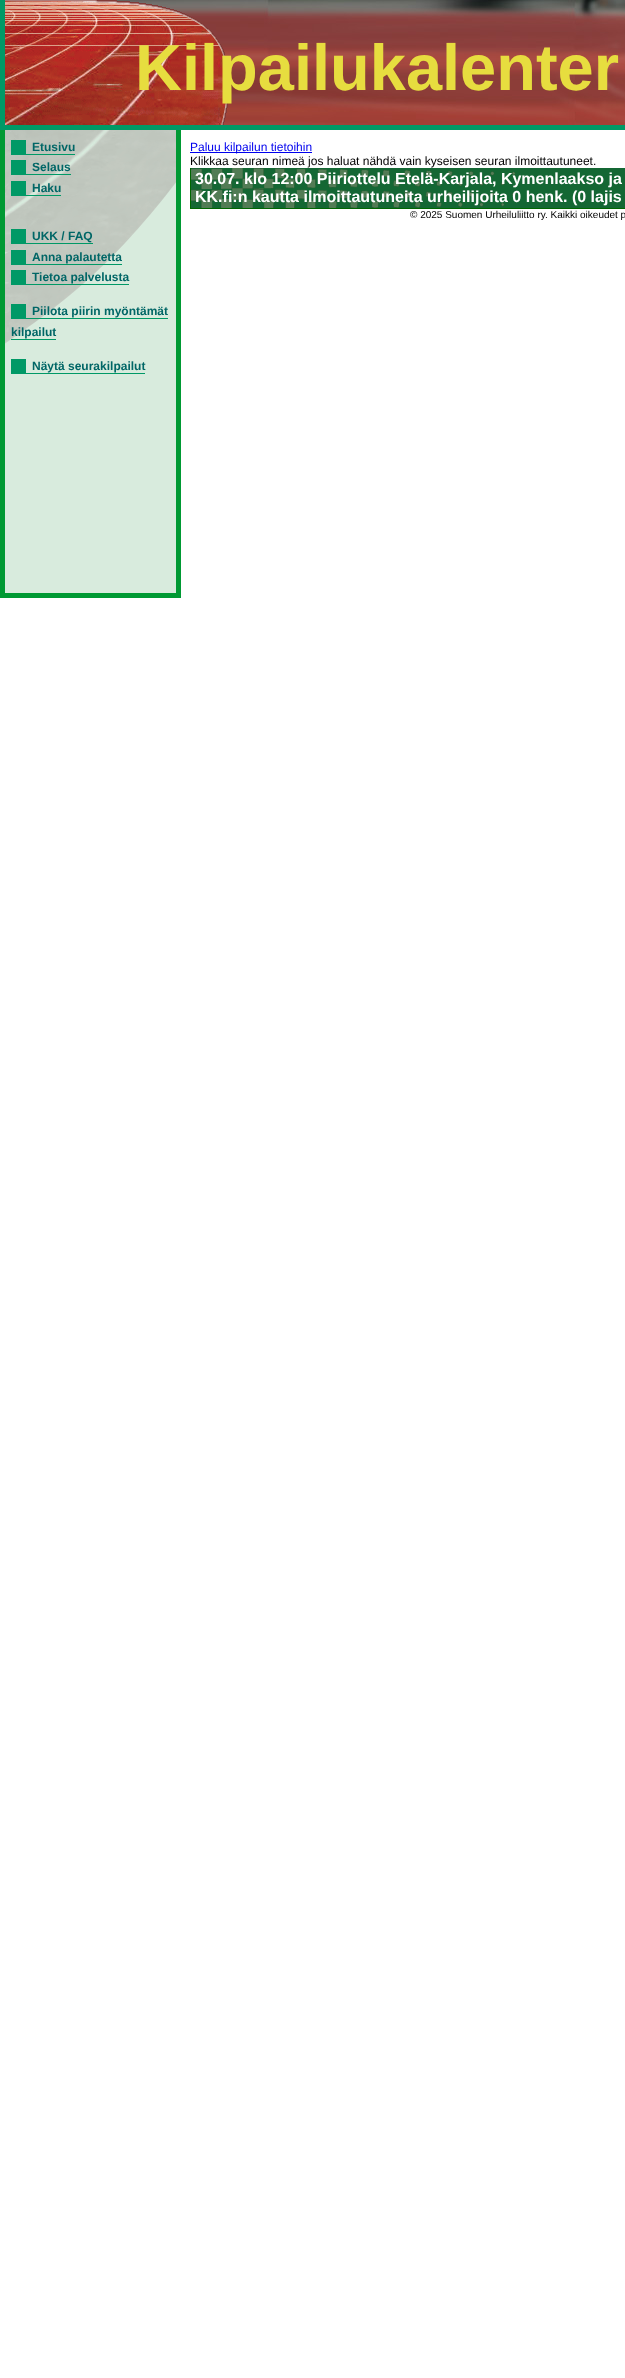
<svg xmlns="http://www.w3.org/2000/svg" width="625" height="2378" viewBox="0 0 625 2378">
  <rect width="100%" height="100%" fill="#fff"/>
  <image x="117" y="0" width="508" height="125" href="img/1.png"/>
  <image x="5" y="0" width="224" height="125" href="img/2.png"/>
  <path d="M176 125h5v473H176z" fill="#093"/>
  <path d="M0 593h181v5H0z" fill="#093"/>
  <path d="M0 125h5v473H0z" fill="#093"/>
  <path d="M0 125h625v5H0z" fill="#096"/>
  <path d="M0 0h5v130H0z" fill="#096"/>
  <path d="M5 142h171v451H5z" fill="#d8ebdd"/>
  <image x="5" y="130" width="171" height="214" href="img/3.png"/>
  <path d="M26 154h49v1H26z" fill="#096"/>
  <path d="M11 140h15v15H11z" fill="#096"/>
  <path d="M26 174h45v1H26z" fill="#096"/>
  <path d="M11 160h15v15H11z" fill="#096"/>
  <path d="M26 195h35v1H26z" fill="#096"/>
  <path d="M11 181h15v15H11z" fill="#096"/>
  <path d="M26 243h67v1H26z" fill="#096"/>
  <path d="M11 229h15v15H11z" fill="#096"/>
  <path d="M26 264h96v1H26z" fill="#096"/>
  <path d="M11 250h15v15H11z" fill="#096"/>
  <path d="M26 284h103v1H26z" fill="#096"/>
  <path d="M11 270h15v15H11z" fill="#096"/>
  <path d="M26 318h142v1H26z" fill="#096"/>
  <path d="M11 304h15v15H11z" fill="#096"/>
  <path d="M11 339h45v1H11z" fill="#096"/>
  <path d="M26 373h119v1H26z" fill="#096"/>
  <path d="M11 359h15v15H11z" fill="#096"/>
  <path d="M190 152h122v1H190z" fill="#00e"/>
  <path d="M190 168h1v41H190z" fill="#060"/>
  <image x="191" y="168" width="434" height="40" href="img/4.png"/>
  <path d="M191 208h434v1H191z" fill="#060"/>
  <text x="135" y="90" font-family="Liberation Sans" font-size="65" font-weight="bold" fill="#e7dd3f">Kilpailukalenter</text>
  <g font-family="Liberation Sans" font-size="12" font-weight="bold" fill="#066">
    <text x="32" y="151">Etusivu</text>
    <text x="32" y="171">Selaus</text>
    <text x="32" y="192">Haku</text>
    <text x="32" y="240">UKK / FAQ</text>
    <text x="32" y="261">Anna palautetta</text>
    <text x="32" y="281">Tietoa palvelusta</text>
    <text x="32" y="315">Piilota piirin myöntämät</text>
    <text x="11" y="336">kilpailut</text>
    <text x="32" y="370">Näytä seurakilpailut</text>
  </g>
  <text x="190" y="151" font-family="Liberation Sans" font-size="12" fill="#00e">Paluu kilpailun tietoihin</text>
  <text x="190" y="165" font-family="Liberation Sans" font-size="12" fill="#000">Klikkaa seuran nimeä jos haluat nähdä vain kyseisen seuran ilmoittautuneet.</text>
  <g font-family="Liberation Sans" font-size="16" font-weight="bold" fill="#fff">
    <text x="195" y="184">30.07. klo 12:00 Piiriottelu Etelä-Karjala, Kymenlaakso ja</text>
    <text x="195" y="202">KK.fi:n kautta ilmoittautuneita urheilijoita 0 henk. (0 lajis</text>
  </g>
  <text x="410" y="218" font-family="Liberation Sans" font-size="10" fill="#000">© 2025 Suomen Urheiluliitto ry. Kaikki oikeudet p</text>
</svg>
